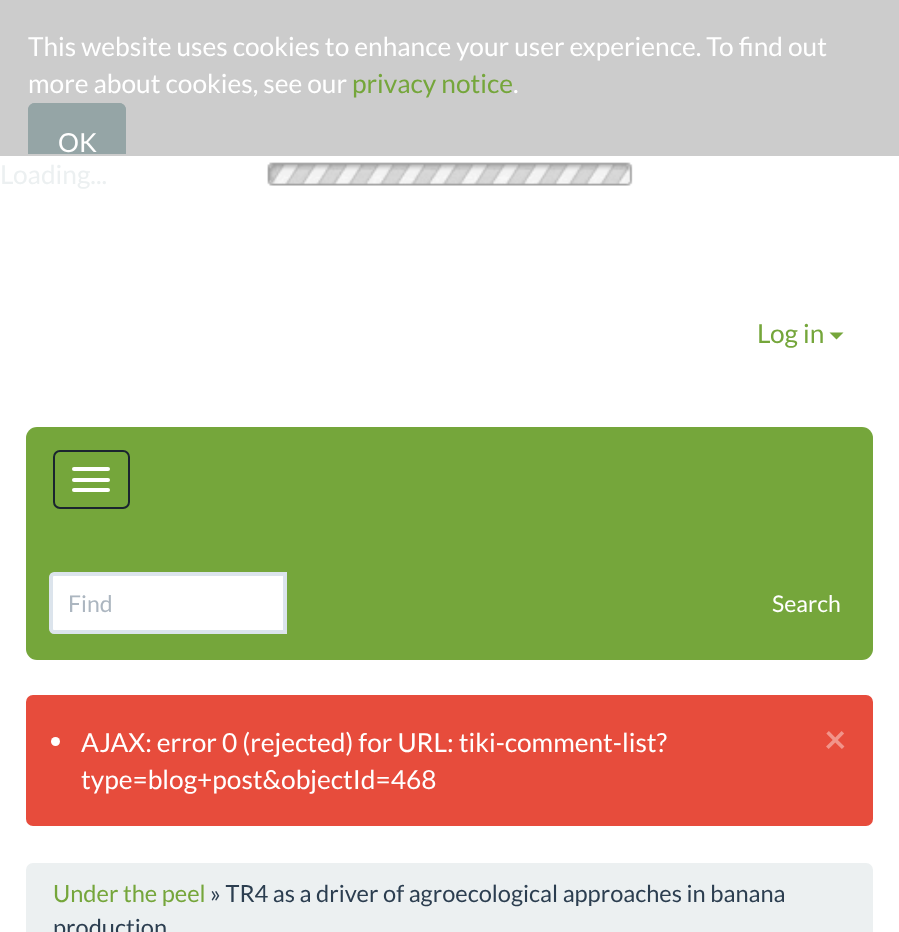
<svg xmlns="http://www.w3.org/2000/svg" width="899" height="932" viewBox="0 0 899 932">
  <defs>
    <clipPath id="clip1"><path d="M2 2h896v152H2z"/></clipPath>
  </defs>
  <rect width="100%" height="100%" fill="#fff"/>
  <path d="M0 0h899v156H0z" fill="#ccc"/>
  <path d="M35 103H119C123 103 126 106 126 110V154H28V110C28 106 31 103 35 103Z" fill="#95a5a6"/>
  <image x="267" y="162" width="366" height="24" href="img/1.png"/>
  <path d="M829.5 332.5H843.5L836.5 339.5Z" fill="#75a63b"/>
  <rect x="26" y="427" width="847" height="233" rx="11" fill="#75a63b"/>
  <rect x="54" y="451" width="75" height="57" rx="6" fill="none" stroke="#1a242f" stroke-width="2"/>
  <rect x="72" y="467" width="38" height="4" rx="2" fill="#fff"/>
  <rect x="72" y="478" width="38" height="4" rx="2" fill="#fff"/>
  <rect x="72" y="488" width="38" height="4" rx="2" fill="#fff"/>
  <path d="M54 574H285V632H54C52.5 632 51 630.5 51 629V577C51 575.5 52.5 574 54 574Z" fill="#fff" stroke="#dce4ec" stroke-width="4"/>
  <rect x="27" y="696" width="845" height="129" rx="6" fill="#e74c3c" stroke="#e74c3c" stroke-width="2"/>
  <circle cx="55.5" cy="741.5" r="4.5" fill="#fff"/>
  <rect x="26" y="863" width="847" height="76" rx="7" fill="#ecf0f1"/>
  <g font-family="Lato" font-size="26.25" fill="#fff">
    <text x="28" y="56">This website uses cookies to enhance your user experience. To find out</text>
    <text x="28" y="93">more about cookies, see our</text>
  </g>
  <text x="352" y="93" font-family="Lato" font-size="26.25" fill="#75a63b">privacy notice</text>
  <text x="513" y="93" font-family="Lato" font-size="26.25" fill="#fff">.</text>
  <text x="0" y="184" font-family="Lato" font-size="26.25" fill="#ecf0f1">Loading...</text>
  <g clip-path="url(#clip1)">
    <rect x="30" y="105" width="94" height="65" rx="5" fill="none" stroke="#95a5a6" stroke-width="4"/>
  </g>
  <text x="58" y="152" font-family="Lato" font-size="26.25" fill="#fff">OK</text>
  <text x="757" y="343" font-family="Lato" font-size="26.25" fill="#75a63b">Log in</text>
  <text x="68" y="612" font-family="Lato" font-size="23" fill="#acb6c0">Find</text>
  <text x="772" y="612" font-family="Lato" font-size="23" fill="#fff">Search</text>
  <g font-family="Lato" font-size="26.25" fill="#fff">
    <text x="81" y="752">AJAX: error 0 (rejected) for URL: tiki-comment-list?</text>
    <text x="81" y="789">type=blog+post&amp;objectId=468</text>
  </g>
  <text x="824" y="753" font-family="Lato" font-size="39" font-weight="bold" fill="#f1948a">×</text>
  <text x="53" y="902" font-family="Lato" font-size="23.6" fill="#75a63b">Under the peel</text>
  <g font-family="Lato" font-size="23.6" fill="#2c3e50">
    <text x="210" y="902">» TR4 as a driver of agroecological approaches in banana</text>
    <text x="53" y="936">production</text>
  </g>
</svg>
